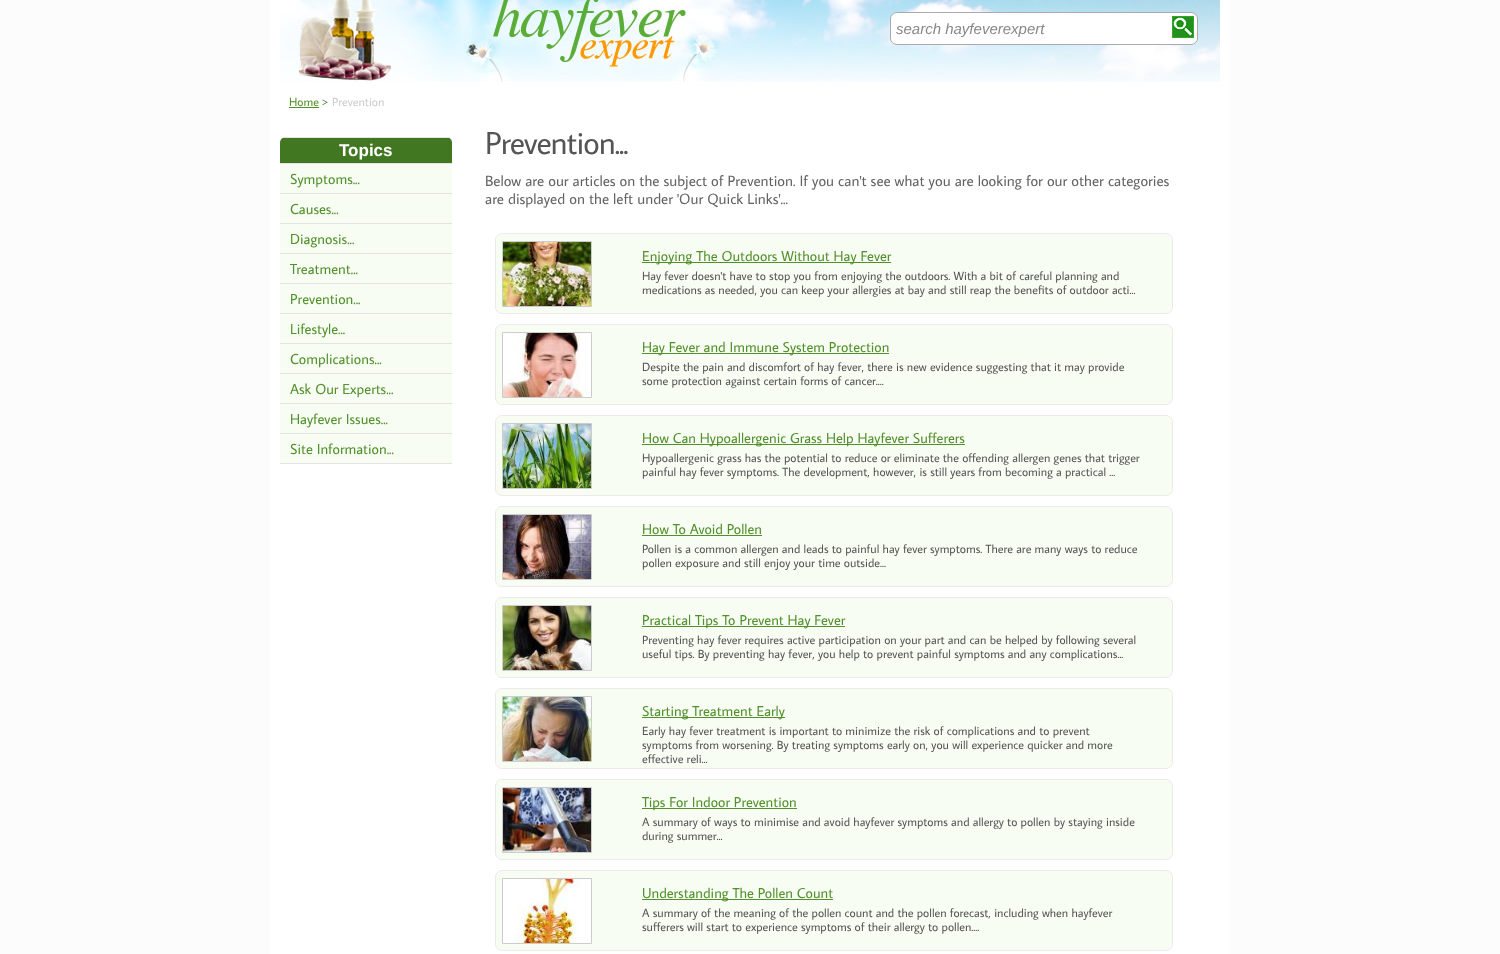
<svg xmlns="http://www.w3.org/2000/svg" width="1500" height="954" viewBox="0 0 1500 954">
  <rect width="100%" height="100%" fill="#fcfcfc"/>
  <path d="M270 0h960v954H270z" fill="#fff"/>
  <image x="280" y="0" width="940" height="82" href="img/2.png"/>
  <rect x="890.5" y="12.5" width="307" height="32" rx="6.5" fill="#fff" stroke="#aaa"/>
  <image x="1172" y="16" width="22" height="22" href="img/1.png"/>
  <path d="M289 107h30v1H289z" fill="#51902a"/>
  <path d="M286 137H446C449.5 137 452 139.5 452 143V164H280V143C280 139.5 282.5 137 286 137Z" fill="#417721"/>
  <path d="M283 137h166v1H283z" fill="#e3e3e3"/>
  <path d="M280 163h172v1H280z" fill="#e3e3e3"/>
  <path d="M280 164h172v29H280z" fill="#f8fdf4"/>
  <path d="M280 193h172v1H280z" fill="#e3e3e3"/>
  <path d="M280 194h172v29H280z" fill="#f8fdf4"/>
  <path d="M280 223h172v1H280z" fill="#e3e3e3"/>
  <path d="M280 224h172v29H280z" fill="#f8fdf4"/>
  <path d="M280 253h172v1H280z" fill="#e3e3e3"/>
  <path d="M280 254h172v29H280z" fill="#f8fdf4"/>
  <path d="M280 283h172v1H280z" fill="#e3e3e3"/>
  <path d="M280 284h172v29H280z" fill="#f8fdf4"/>
  <path d="M280 313h172v1H280z" fill="#e3e3e3"/>
  <path d="M280 314h172v29H280z" fill="#f8fdf4"/>
  <path d="M280 343h172v1H280z" fill="#e3e3e3"/>
  <path d="M280 344h172v29H280z" fill="#f8fdf4"/>
  <path d="M280 373h172v1H280z" fill="#e3e3e3"/>
  <path d="M280 374h172v29H280z" fill="#f8fdf4"/>
  <path d="M280 403h172v1H280z" fill="#e3e3e3"/>
  <path d="M280 404h172v29H280z" fill="#f8fdf4"/>
  <path d="M280 433h172v1H280z" fill="#e3e3e3"/>
  <path d="M280 434h172v29H280z" fill="#f8fdf4"/>
  <path d="M280 463h172v1H280z" fill="#e3e3e3"/>
  <rect x="495.5" y="233.5" width="677" height="80" rx="6.5" fill="#f8fdf4" stroke="#f1e8eb"/>
  <path d="M502.5 241.5h89v65H502.5z" fill="none" stroke="#ccc"/>
  <image x="503" y="242" width="88" height="64" href="img/3.png"/>
  <path d="M642 262h249v1H642z" fill="#51902a"/>
  <rect x="495.5" y="324.5" width="677" height="80" rx="6.5" fill="#f8fdf4" stroke="#f1e8eb"/>
  <path d="M502.5 332.5h89v65H502.5z" fill="none" stroke="#ccc"/>
  <image x="503" y="333" width="88" height="64" href="img/4.png"/>
  <path d="M642 353h247v1H642z" fill="#51902a"/>
  <rect x="495.5" y="415.5" width="677" height="80" rx="6.5" fill="#f8fdf4" stroke="#f1e8eb"/>
  <path d="M502.5 423.5h89v65H502.5z" fill="none" stroke="#ccc"/>
  <image x="503" y="424" width="88" height="64" href="img/5.png"/>
  <path d="M642 444h323v1H642z" fill="#51902a"/>
  <rect x="495.5" y="506.5" width="677" height="80" rx="6.5" fill="#f8fdf4" stroke="#f1e8eb"/>
  <path d="M502.5 514.5h89v65H502.5z" fill="none" stroke="#ccc"/>
  <image x="503" y="515" width="88" height="64" href="img/6.png"/>
  <path d="M642 535h120v1H642z" fill="#51902a"/>
  <rect x="495.5" y="597.5" width="677" height="80" rx="6.5" fill="#f8fdf4" stroke="#f1e8eb"/>
  <path d="M502.5 605.5h89v65H502.5z" fill="none" stroke="#ccc"/>
  <image x="503" y="606" width="88" height="64" href="img/7.png"/>
  <path d="M642 626h203v1H642z" fill="#51902a"/>
  <rect x="495.5" y="688.5" width="677" height="80" rx="6.5" fill="#f8fdf4" stroke="#f1e8eb"/>
  <path d="M502.5 696.5h89v65H502.5z" fill="none" stroke="#ccc"/>
  <image x="503" y="697" width="88" height="64" href="img/8.png"/>
  <path d="M642 717h143v1H642z" fill="#51902a"/>
  <rect x="495.5" y="779.5" width="677" height="80" rx="6.5" fill="#f8fdf4" stroke="#f1e8eb"/>
  <path d="M502.5 787.5h89v65H502.5z" fill="none" stroke="#ccc"/>
  <image x="503" y="788" width="88" height="64" href="img/9.png"/>
  <path d="M642 808h155v1H642z" fill="#51902a"/>
  <rect x="495.5" y="870.5" width="677" height="80" rx="6.5" fill="#f8fdf4" stroke="#f1e8eb"/>
  <path d="M502.5 878.5h89v65H502.5z" fill="none" stroke="#ccc"/>
  <image x="503" y="879" width="88" height="64" href="img/10.png"/>
  <path d="M642 899h191v1H642z" fill="#51902a"/>
  <text x="896" y="34" font-family="Liberation Sans" font-size="15" font-style="italic" fill="#888">search hayfeverexpert</text>
  <text x="289" y="106" font-family="Average Sans" font-size="12" fill="#51902a">Home</text>
  <text x="322" y="106" font-family="Average Sans" font-size="12" fill="#417721">&gt;</text>
  <text x="332" y="106" font-family="Average Sans" font-size="12" fill="#ccc">Prevention</text>
  <text x="339" y="156" font-family="Liberation Sans" font-size="17" font-weight="bold" fill="#fff">Topics</text>
  <g font-family="Average Sans" font-size="14.5" fill="#51902a">
    <text x="290" y="184">Symptoms...</text>
    <text x="290" y="214">Causes...</text>
    <text x="290" y="244">Diagnosis...</text>
    <text x="290" y="274">Treatment...</text>
    <text x="290" y="304">Prevention...</text>
    <text x="290" y="334">Lifestyle...</text>
    <text x="290" y="364">Complications...</text>
    <text x="290" y="394">Ask Our Experts...</text>
    <text x="290" y="424">Hayfever Issues...</text>
    <text x="290" y="454">Site Information...</text>
  </g>
  <text x="485" y="154" font-family="Average Sans" font-size="32" letter-spacing="-1" fill="#555">Prevention...</text>
  <g font-family="Average Sans" font-size="15" fill="#636363">
    <text x="485" y="186">Below are our articles on the subject of Prevention. If you can't see what you are looking for our other categories</text>
    <text x="485" y="204">are displayed on the left under 'Our Quick Links'...</text>
  </g>
  <text x="642" y="261" font-family="Average Sans" font-size="14.4" fill="#51902a">Enjoying The Outdoors Without Hay Fever</text>
  <g font-family="Average Sans" font-size="12" fill="#555">
    <text x="642" y="280">Hay fever doesn't have to stop you from enjoying the outdoors. With a bit of careful planning and</text>
    <text x="642" y="294">medications as needed, you can keep your allergies at bay and still reap the benefits of outdoor acti...</text>
  </g>
  <text x="642" y="352" font-family="Average Sans" font-size="14.4" fill="#51902a">Hay Fever and Immune System Protection</text>
  <g font-family="Average Sans" font-size="12" fill="#555">
    <text x="642" y="371">Despite the pain and discomfort of hay fever, there is new evidence suggesting that it may provide</text>
    <text x="642" y="385">some protection against certain forms of cancer....</text>
  </g>
  <text x="642" y="443" font-family="Average Sans" font-size="14.4" fill="#51902a">How Can Hypoallergenic Grass Help Hayfever Sufferers</text>
  <g font-family="Average Sans" font-size="12" fill="#555">
    <text x="642" y="462">Hypoallergenic grass has the potential to reduce or eliminate the offending allergen genes that trigger</text>
    <text x="642" y="476">painful hay fever symptoms. The development, however, is still years from becoming a practical ...</text>
  </g>
  <text x="642" y="534" font-family="Average Sans" font-size="14.4" fill="#51902a">How To Avoid Pollen</text>
  <g font-family="Average Sans" font-size="12" fill="#555">
    <text x="642" y="553">Pollen is a common allergen and leads to painful hay fever symptoms. There are many ways to reduce</text>
    <text x="642" y="567">pollen exposure and still enjoy your time outside...</text>
  </g>
  <text x="642" y="625" font-family="Average Sans" font-size="14.4" fill="#51902a">Practical Tips To Prevent Hay Fever</text>
  <g font-family="Average Sans" font-size="12" fill="#555">
    <text x="642" y="644">Preventing hay fever requires active participation on your part and can be helped by following several</text>
    <text x="642" y="658">useful tips. By preventing hay fever, you help to prevent painful symptoms and any complications...</text>
  </g>
  <text x="642" y="716" font-family="Average Sans" font-size="14.4" fill="#51902a">Starting Treatment Early</text>
  <g font-family="Average Sans" font-size="12" fill="#555">
    <text x="642" y="735">Early hay fever treatment is important to minimize the risk of complications and to prevent</text>
    <text x="642" y="749">symptoms from worsening. By treating symptoms early on, you will experience quicker and more</text>
    <text x="642" y="763">effective reli...</text>
  </g>
  <text x="642" y="807" font-family="Average Sans" font-size="14.4" fill="#51902a">Tips For Indoor Prevention</text>
  <g font-family="Average Sans" font-size="12" fill="#555">
    <text x="642" y="826">A summary of ways to minimise and avoid hayfever symptoms and allergy to pollen by staying inside</text>
    <text x="642" y="840">during summer...</text>
  </g>
  <text x="642" y="898" font-family="Average Sans" font-size="14.4" fill="#51902a">Understanding The Pollen Count</text>
  <g font-family="Average Sans" font-size="12" fill="#555">
    <text x="642" y="917">A summary of the meaning of the pollen count and the pollen forecast, including when hayfever</text>
    <text x="642" y="931">sufferers will start to experience symptoms of their allergy to pollen....</text>
  </g>
</svg>
